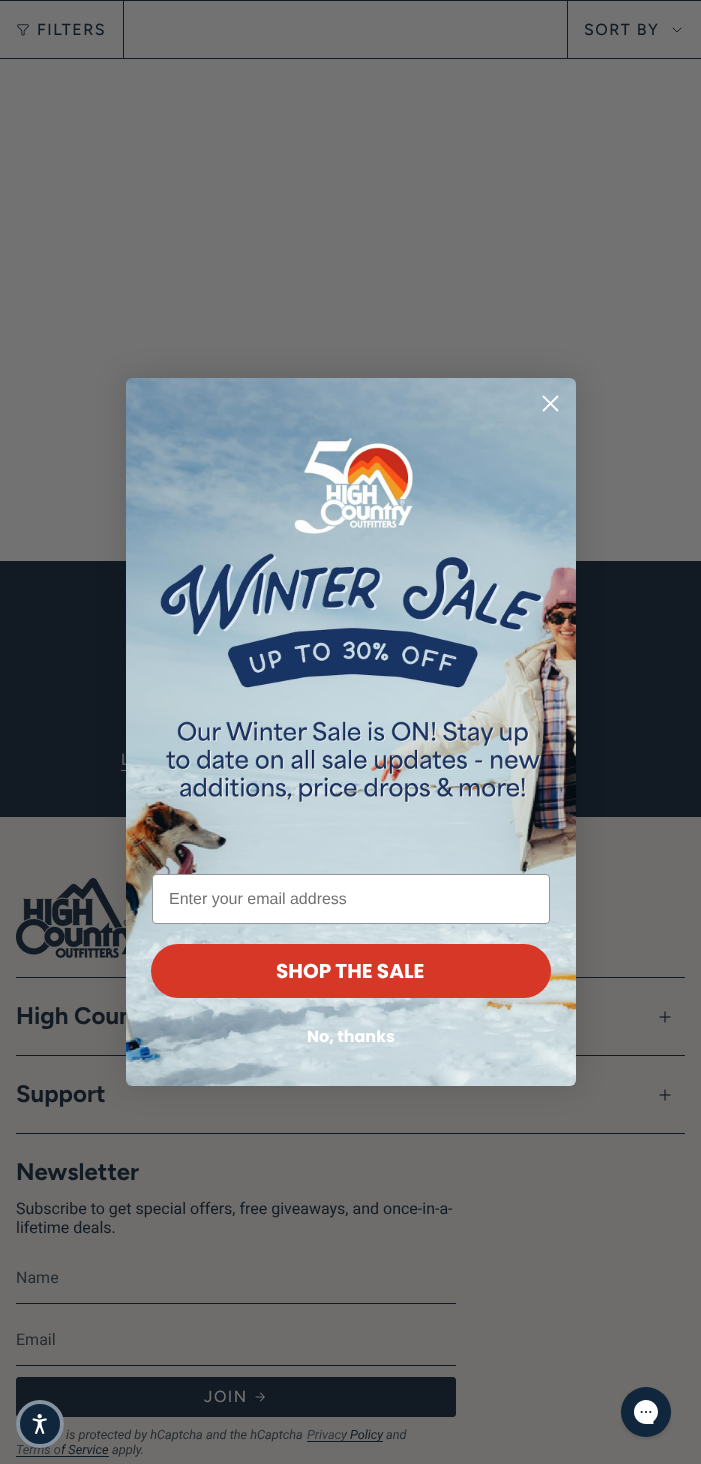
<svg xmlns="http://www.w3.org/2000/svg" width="701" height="1464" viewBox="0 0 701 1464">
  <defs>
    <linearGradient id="g1" gradientUnits="userSpaceOnUse" x1="121" y1="761" x2="238" y2="761"><stop offset="0" stop-color="#525456"/><stop offset="0.5" stop-color="#525456"/><stop offset="0.5" stop-color="#6e6d6a"/><stop offset="1" stop-color="#6e6d6a"/></linearGradient>
    <linearGradient id="g2" gradientUnits="userSpaceOnUse" x1="307" y1="1435" x2="383" y2="1435"><stop offset="0" stop-color="#2e343a"/><stop offset="0.5" stop-color="#2e343a"/><stop offset="0.5" stop-color="#121b24"/><stop offset="1" stop-color="#121b24"/></linearGradient>
    <linearGradient id="g3" gradientUnits="userSpaceOnUse" x1="16" y1="1450" x2="109" y2="1450"><stop offset="0" stop-color="#2e343a"/><stop offset="0.5" stop-color="#2e343a"/><stop offset="0.5" stop-color="#121b24"/><stop offset="1" stop-color="#121b24"/></linearGradient>
  </defs>
  <rect width="100%" height="100%" fill="#727272"/>
  <path d="M0 0h701v1H0z" fill="#121b24"/>
  <path d="M0 58h701v1H0z" fill="#121b24"/>
  <path d="M123 1h1v57H123z" fill="#121b24"/>
  <image x="17" y="24" width="12" height="12" href="img/1.png"/>
  <path d="M567 1h1v57H567z" fill="#121b24"/>
  <path d="M673 28L677 32L681 28" fill="none" stroke="#121b24" stroke-linecap="round" stroke-linejoin="round"/>
  <path d="M0 561h701v256H0z" fill="#121b24"/>
  <path d="M121 770h5v1H121z" fill="#6e6d6a"/>
  <path d="M0 817h701v647H0z" fill="#6e6d6b"/>
  <image x="16" y="878" width="110" height="80" href="img/3.png"/>
  <path d="M16 977h669v1H16z" fill="#121b24"/>
  <path d="M16 1055h669v1H16z" fill="#121b24"/>
  <rect x="126" y="378" width="450" height="708" rx="6" fill="#00000026" filter="blur(15px)"/>
  <image x="659" y="1011" width="12" height="12" href="img/4.png"/>
  <path d="M16 1133h669v1H16z" fill="#121b24"/>
  <image x="659" y="1089" width="12" height="12" href="img/4.png"/>
  <path d="M16 1303h440v1H16z" fill="#121b24"/>
  <path d="M16 1365h440v1H16z" fill="#121b24"/>
  <rect x="16.5" y="1377.5" width="439" height="39" rx="2.5" fill="#121b24" stroke="#121b24"/>
  <image x="255" y="1392" width="10" height="10" href="img/5.png"/>
  <path d="M16 1456h93v1H16z" fill="#121b24"/>
  <image x="620" y="1387" width="52" height="53" href="img/6.png"/>
  <g font-family="Figtree" font-size="16" font-weight="500" letter-spacing="1.5" fill="#121b24">
    <text x="37" y="35">FILTERS</text>
    <text x="584" y="35">SORT BY</text>
  </g>
  <text x="121" y="765" font-family="Roboto" font-size="16" font-weight="500" fill="url(#g1)">L</text>
  <text x="16" y="1024" font-family="Figtree" font-size="24" font-weight="bold" fill="#121b24">High Coun</text>
  <image x="126" y="378" width="450" height="708" href="img/2.png"/>
  <path d="M543.5 396.5L557.5 410.5M543.5 410.5L557.5 396.5Z" fill="none" stroke="#fff" stroke-width="1.8" stroke-linecap="round" stroke-linejoin="round"/>
  <text x="307" y="1042" font-family="Poppins" font-size="16" font-weight="bold" fill="#fff">No, thanks</text>
  <rect x="151" y="944" width="400" height="54" rx="27" fill="#d73727"/>
  <text x="276" y="978" font-family="Poppins" font-size="20" font-weight="bold" fill="#fff">SHOP THE SALE</text>
  <rect x="152.5" y="874.5" width="397" height="49" rx="3.5" fill="#fff" stroke="#949596"/>
  <text x="169" y="904" font-family="Liberation Sans" font-size="16" fill="#727272">Enter your email address</text>
  <g font-family="Figtree" font-size="24" font-weight="bold" fill="#121b24">
    <text x="16" y="1102">Support</text>
    <text x="16" y="1180">Newsletter</text>
  </g>
  <g font-family="Roboto" font-size="16" fill="#121b24">
    <text x="16" y="1214">Subscribe to get special offers, free giveaways, and once-in-a-</text>
    <text x="16" y="1233">lifetime deals.</text>
  </g>
  <g font-family="Roboto" font-size="16" fill="#242c32">
    <text x="16" y="1283">Name</text>
    <text x="16" y="1345">Email</text>
  </g>
  <text x="204" y="1402" font-family="Figtree" font-size="16" font-weight="500" letter-spacing="1.5" fill="#727272">JOIN</text>
  <text x="66" y="1439" font-family="Roboto" font-size="12.75" font-style="italic" fill="#242c32">is protected by hCaptcha and the hCaptcha</text>
  <text x="307" y="1439" font-family="Roboto" font-size="12.75" font-style="italic" fill="url(#g2)">Privacy Policy</text>
  <path d="M307 1441h76v1H307z" fill="#121b24"/>
  <text x="386" y="1439" font-family="Roboto" font-size="12.75" font-style="italic" fill="#242c32">and</text>
  <text x="16" y="1454" font-family="Roboto" font-size="12.75" font-style="italic" fill="url(#g3)">Terms of Service</text>
  <text x="112" y="1454" font-family="Roboto" font-size="12.75" font-style="italic" fill="#242c32">apply.</text>
  <circle cx="40" cy="1424" r="24" fill="#0f263d"/>
  <circle cx="40" cy="1424" r="22" fill="none" stroke="#ffffff80" stroke-width="4"/>
  <image x="32" y="1414" width="15" height="20" href="img/7.png"/>
</svg>
